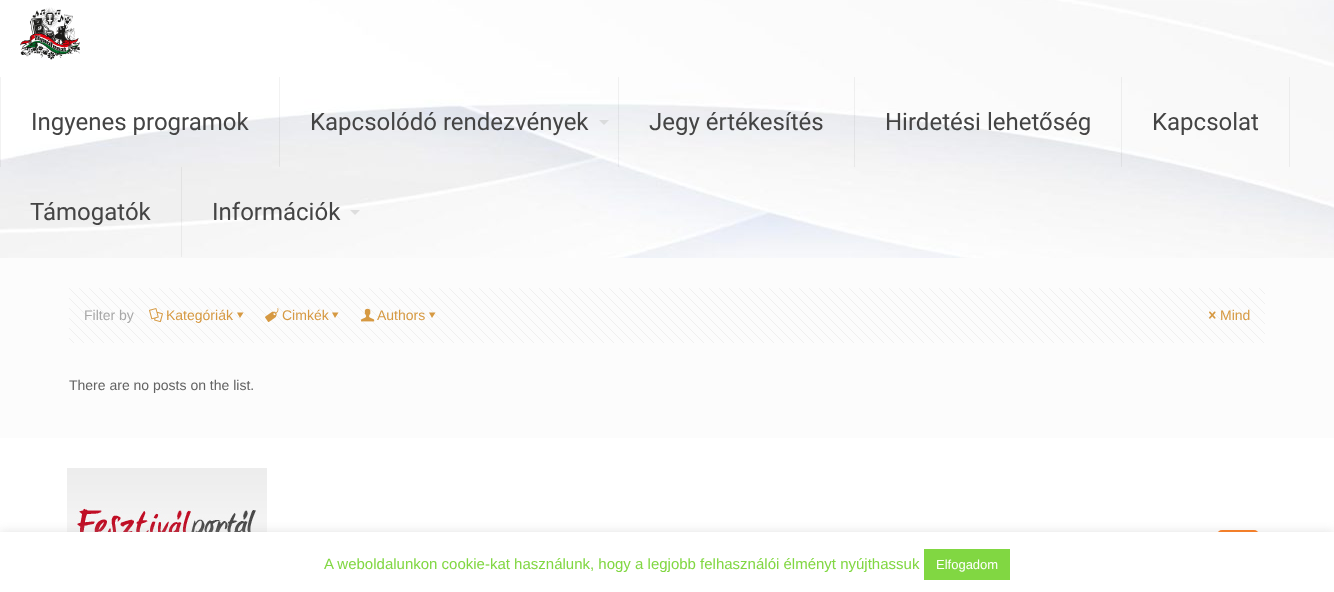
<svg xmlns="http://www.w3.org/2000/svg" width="1334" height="592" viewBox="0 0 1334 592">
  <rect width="100%" height="100%" fill="#fcfcfc"/>
  <image x="0" y="0" width="1334" height="258" href="img/1.png"/>
  <image x="20" y="7" width="60" height="53" href="img/2.png"/>
  <path d="M279 77h1v90H279z" fill="#0000000d"/>
  <path d="M0 77h1v90H0z" fill="#0000000d"/>
  <path d="M618 77h1v90H618z" fill="#0000000d"/>
  <path d="M599 120H609L604 125Z" fill="#dadbdc"/>
  <path d="M854 77h1v90H854z" fill="#0000000d"/>
  <path d="M1121 77h1v90H1121z" fill="#0000000d"/>
  <path d="M1289 77h1v90H1289z" fill="#ececec"/>
  <path d="M181 167h1v90H181z" fill="#0000000d"/>
  <path d="M350 210H360L355 215Z" fill="#ddd"/>
  <image x="69" y="288" width="1196" height="55" href="img/3.png"/>
  <image x="149" y="308" width="14" height="15" href="img/4.png"/>
  <path d="M243.5 312.5L240 318L237 312.5Z" fill="#d69942"/>
  <image x="265" y="308" width="14" height="14" href="img/5.png"/>
  <path d="M338.5 312.5L335 318L332 312.5Z" fill="#d69942"/>
  <image x="361" y="308" width="14" height="14" href="img/6.png"/>
  <path d="M435.5 312.5L432 318L429 312.5Z" fill="#d69942"/>
  <image x="1209" y="311" width="7" height="8" href="img/7.png"/>
  <path d="M0 438h1334v94H0z" fill="#fff"/>
  <image x="67" y="468" width="200" height="64" href="img/8.png"/>
  <rect x="1217" y="530" width="42" height="42" rx="5" fill="#ff7713"/>
  <path d="M0 531h1334v60H0z" fill="#acabab4d" filter="blur(5px)"/>
  <path d="M0 532h1334v60H0z" fill="#fff"/>
  <path d="M924 549h86v31H924z" fill="#81d742"/>
  <g font-family="Roboto" font-size="24" fill="#444">
    <text x="31" y="130">Ingyenes programok</text>
    <text x="310" y="130">Kapcsolódó rendezvények</text>
    <text x="649" y="130">Jegy értékesítés</text>
    <text x="885" y="130">Hirdetési lehetőség</text>
    <text x="1152" y="130">Kapcsolat</text>
    <text x="30" y="220">Támogatók</text>
    <text x="212" y="220">Információk</text>
  </g>
  <text x="84" y="320" font-family="Liberation Sans" font-size="14" fill="#a8a8a8">Filter by</text>
  <g font-family="Liberation Sans" font-size="14" fill="#d69942">
    <text x="166" y="320">Kategóriák</text>
    <text x="282" y="320">Cimkék</text>
    <text x="377" y="320">Authors</text>
    <text x="1220" y="320">Mind</text>
  </g>
  <text x="69" y="390" font-family="Liberation Sans" font-size="14" fill="#626262">There are no posts on the list.</text>
  <text x="324" y="569" font-family="Liberation Sans" font-size="15" fill="#81d742">A weboldalunkon cookie-kat használunk, hogy a legjobb felhasználói élményt nyújthassuk</text>
  <text x="936" y="569" font-family="Liberation Sans" font-size="13" fill="#fff">Elfogadom</text>
</svg>
